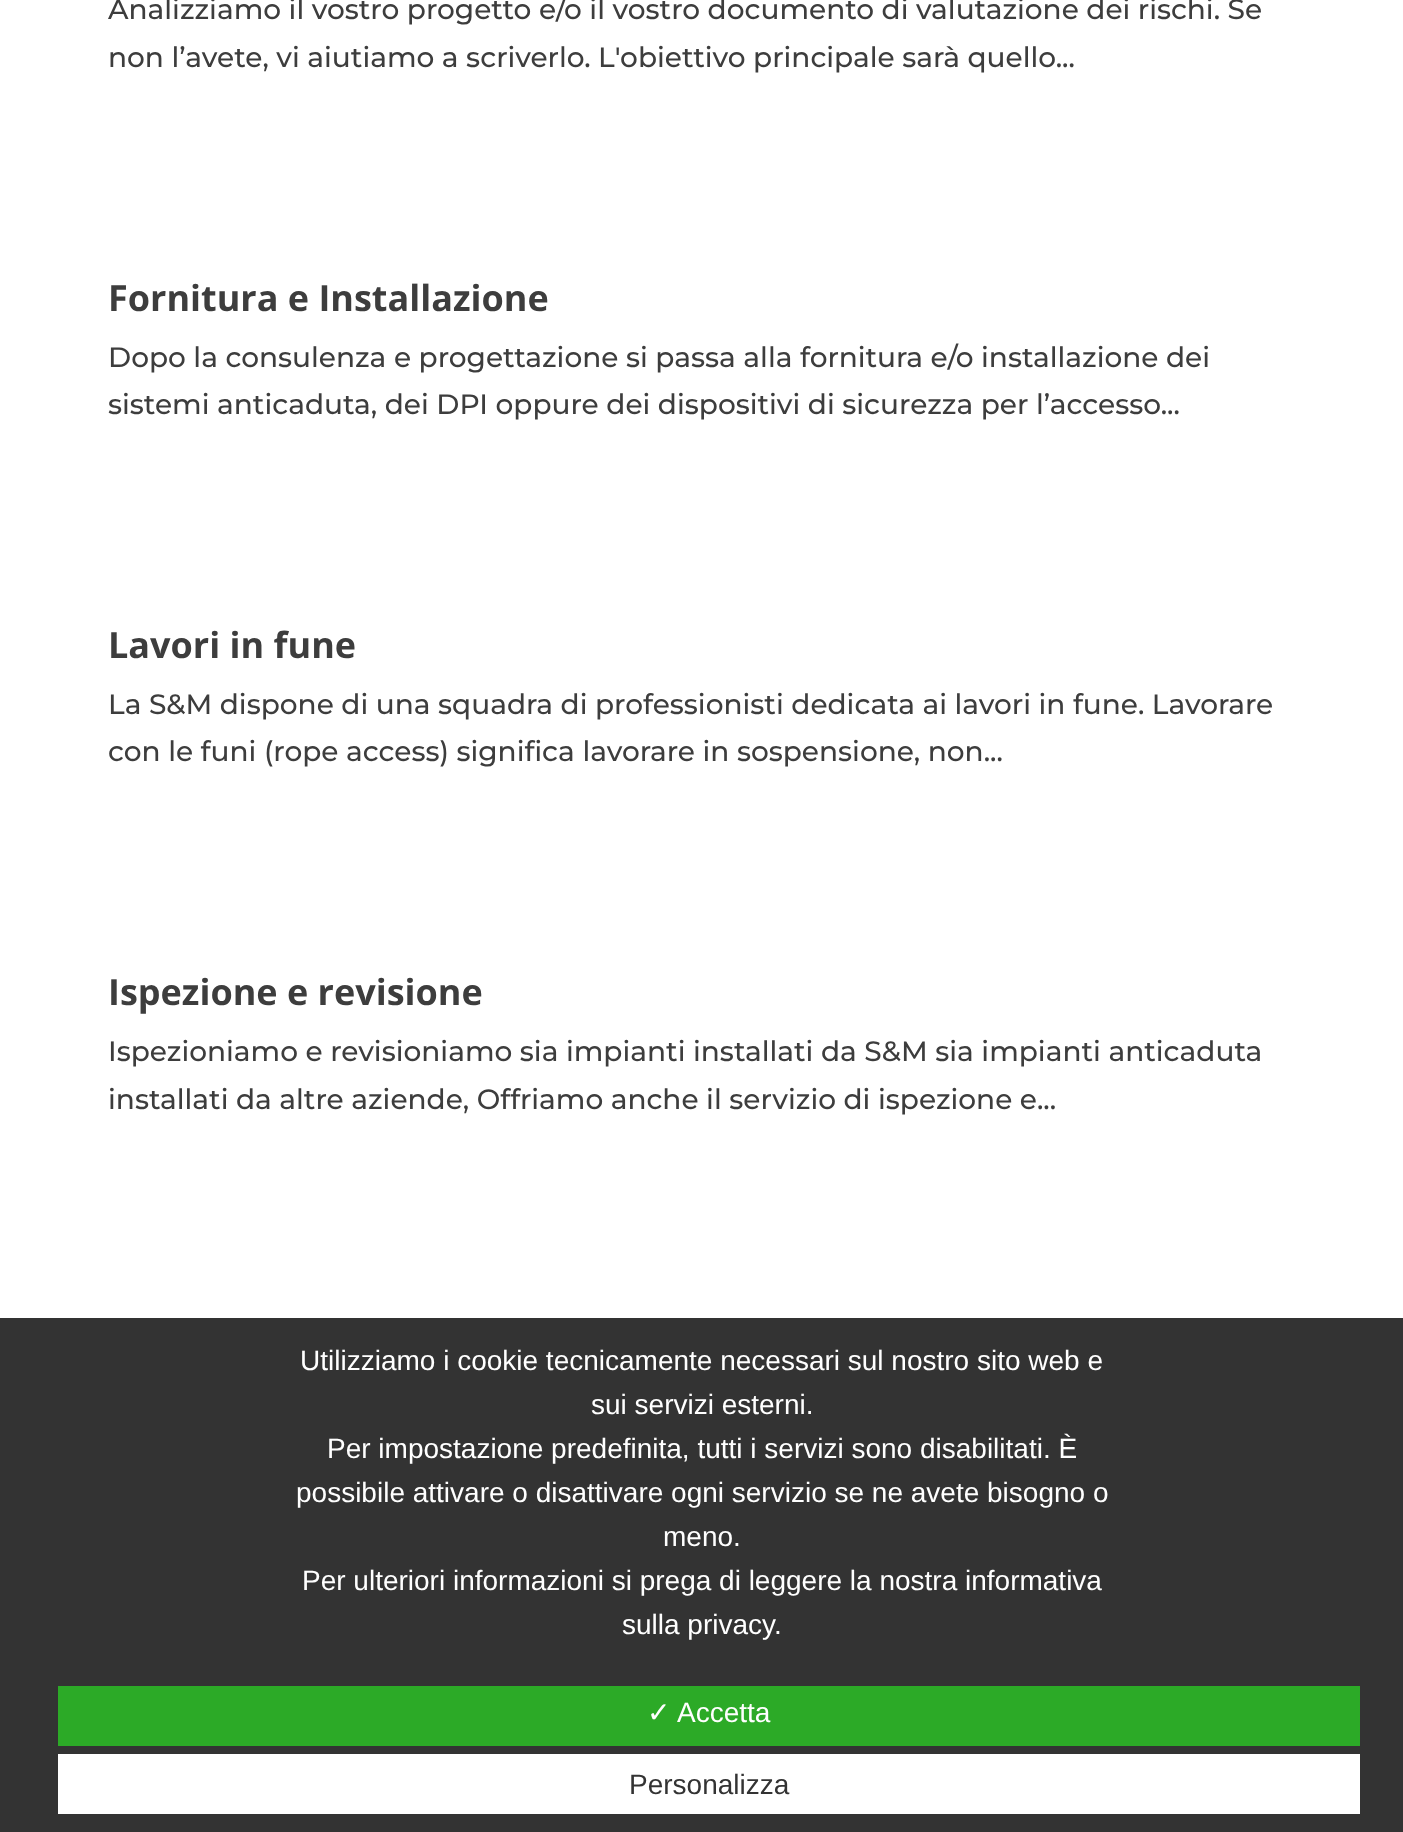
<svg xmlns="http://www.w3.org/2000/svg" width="1403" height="1832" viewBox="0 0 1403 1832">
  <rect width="100%" height="100%" fill="#fff"/>
  <path d="M0 1318h1403v514H0z" fill="#333"/>
  <path d="M58 1686h1302v60H58z" fill="#2caa27"/>
  <path d="M58 1754h1302v60H58z" fill="#fff"/>
  <g font-family="Montserrat" font-size="28" font-weight="100" fill="#3d3d3d">
    <text x="108" y="19">Analizziamo il vostro progetto e/o il vostro documento di valutazione dei rischi. Se</text>
    <text x="108" y="67">non l’avete, vi aiutiamo a scriverlo. L'obiettivo principale sarà quello...</text>
  </g>
  <text x="108" y="311" font-family="Open Sans" font-size="36" font-weight="bold" fill="#3d3d3d">Fornitura e Installazione</text>
  <g font-family="Montserrat" font-size="28" font-weight="100" fill="#3d3d3d">
    <text x="108" y="367">Dopo la consulenza e progettazione si passa alla fornitura e/o installazione dei</text>
    <text x="108" y="414">sistemi anticaduta, dei DPI oppure dei dispositivi di sicurezza per l’accesso...</text>
  </g>
  <text x="108" y="658" font-family="Open Sans" font-size="36" font-weight="bold" fill="#3d3d3d">Lavori in fune</text>
  <g font-family="Montserrat" font-size="28" font-weight="100" fill="#3d3d3d">
    <text x="108" y="714">La S&amp;M dispone di una squadra di professionisti dedicata ai lavori in fune. Lavorare</text>
    <text x="108" y="761">con le funi (rope access) significa lavorare in sospensione, non...</text>
  </g>
  <text x="108" y="1005" font-family="Open Sans" font-size="36" font-weight="bold" fill="#3d3d3d">Ispezione e revisione</text>
  <g font-family="Montserrat" font-size="28" font-weight="100" fill="#3d3d3d">
    <text x="108" y="1061">Ispezioniamo e revisioniamo sia impianti installati da S&amp;M sia impianti anticaduta</text>
    <text x="108" y="1109">installati da altre aziende, Offriamo anche il servizio di ispezione e...</text>
  </g>
  <g font-family="Liberation Sans" font-size="28" fill="#fff">
    <text x="300" y="1370">Utilizziamo i cookie tecnicamente necessari sul nostro sito web e</text>
    <text x="591" y="1414">sui servizi esterni.</text>
    <text x="327" y="1458">Per impostazione predefinita, tutti i servizi sono disabilitati. È</text>
    <text x="296" y="1502">possibile attivare o disattivare ogni servizio se ne avete bisogno o</text>
    <text x="663" y="1546">meno.</text>
    <text x="302" y="1590">Per ulteriori informazioni si prega di leggere la nostra informativa</text>
    <text x="622" y="1634">sulla privacy.</text>
  </g>
  <text x="647" y="1722" font-family="DejaVu Sans" font-size="28" fill="#fff">✓</text>
  <text x="677" y="1722" font-family="Liberation Sans" font-size="28" fill="#fff">Accetta</text>
  <text x="629" y="1794" font-family="Liberation Sans" font-size="28" fill="#333">Personalizza</text>
</svg>
